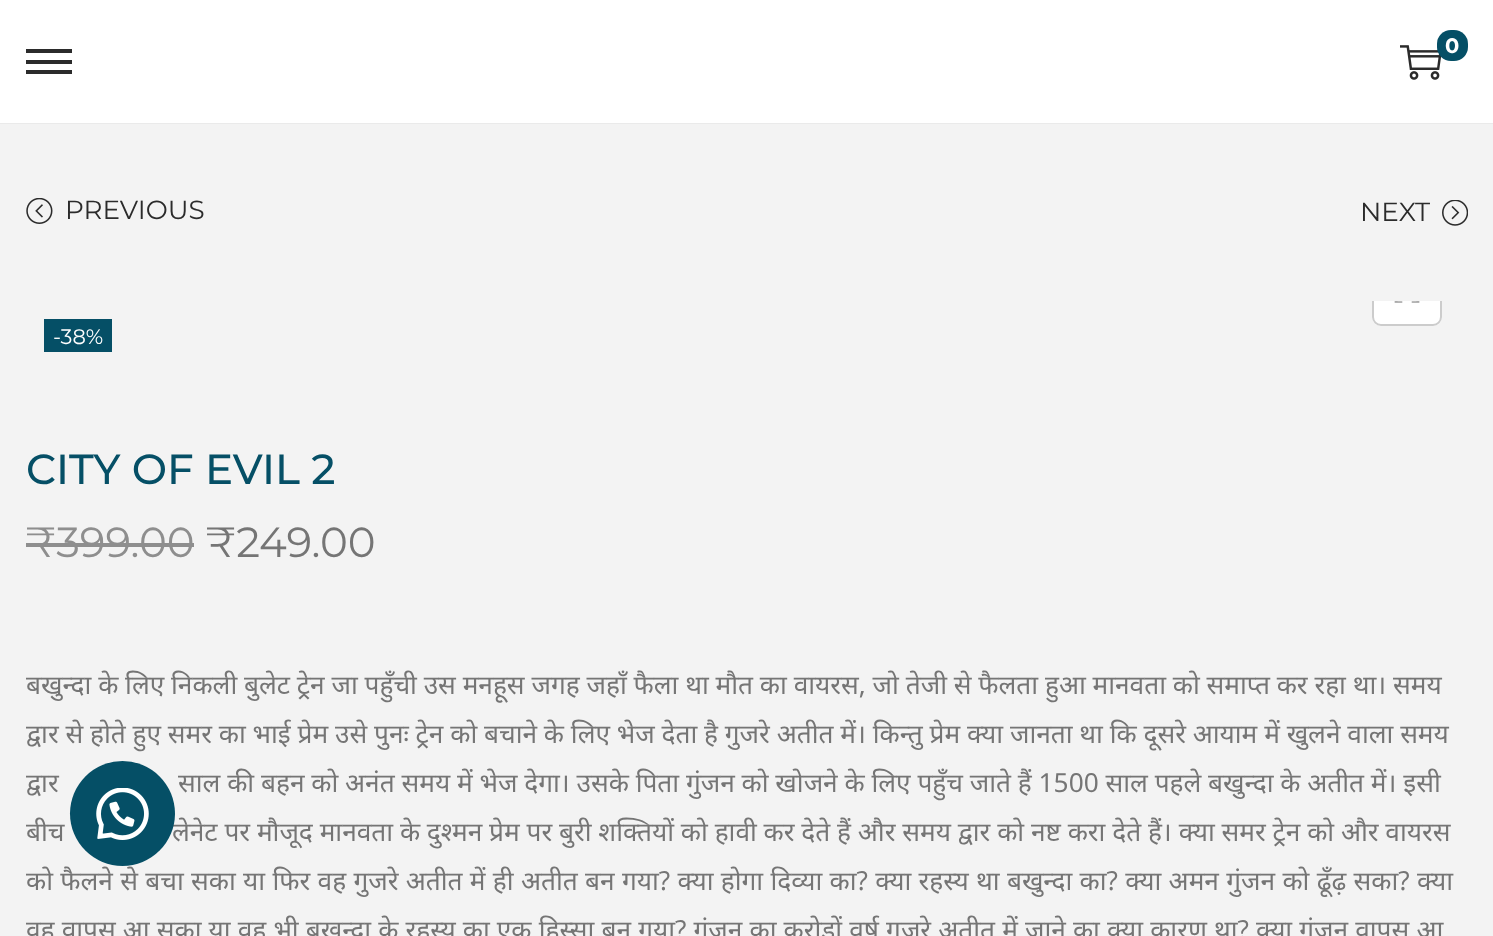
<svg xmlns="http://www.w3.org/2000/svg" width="1493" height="936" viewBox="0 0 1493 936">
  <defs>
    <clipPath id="clip1"><path d="M26 301h1442v51H26z"/></clipPath>
  </defs>
  <rect width="100%" height="100%" fill="#fff"/>
  <path d="M0 123h1493v1H0z" fill="#eaeaea"/>
  <image x="1400" y="45" width="42" height="35" href="img/1.png"/>
  <rect x="1437" y="30" width="31" height="31" rx="14" fill="#054f66"/>
  <path d="M26 60h46v4H26z" fill="#2b2b2b"/>
  <path d="M26 49h46v4H26z" fill="#2b2b2b"/>
  <path d="M26 70h46v4H26z" fill="#2b2b2b"/>
  <path d="M0 124h1493v812H0z" fill="#f3f3f3"/>
  <image x="26" y="198" width="27" height="26" href="img/2.png"/>
  <image x="1442" y="200" width="26" height="26" href="img/3.png"/>
  <path d="M1372 301H1442V317C1442 322 1438 326 1433 326H1381C1376 326 1372 322 1372 317Z" fill="#fff"/>
  <g clip-path="url(#clip1)">
    <rect x="1373" y="257" width="68" height="68" rx="8" fill="none" stroke="#ccc" stroke-width="2"/>
  </g>
  <image x="1394" y="301" width="26" height="2" href="img/4.png"/>
  <path d="M44 319h68v33H44z" fill="#054f66"/>
  <path d="M26 543h168v4H26z" fill="#8e8e8e"/>
  <text x="1445" y="53" font-family="Montserrat" font-size="21" font-weight="bold" fill="#fff">0</text>
  <g font-family="Montserrat" font-size="26.25" fill="#2b2b2b">
    <text x="65" y="219">PREVIOUS</text>
    <text x="1360" y="221">NEXT</text>
  </g>
  <text x="53" y="344" font-family="Montserrat" font-size="21" fill="#fff">-38%</text>
  <text x="26" y="484" font-family="Montserrat" font-size="42" font-weight="500" fill="#054f66">CITY OF EVIL 2</text>
  <text x="26" y="557" font-family="Montserrat" font-size="42" fill="#8e8e8e">₹399.00</text>
  <text x="206" y="557" font-family="Montserrat" font-size="42" fill="#757575">₹249.00</text>
  <g font-family="Noto Sans" font-size="26.25" fill="#757575">
    <text x="26" y="694">बखुन्दा के लिए निकली बुलेट ट्रेन जा पहुँची उस मनहूस जगह जहाँ फैला था मौत का वायरस, जो तेजी से फैलता हुआ मानवता को समाप्त कर रहा था। समय</text>
    <text x="26" y="743">द्वार से होते हुए समर का भाई प्रेम उसे पुनः ट्रेन को बचाने के लिए भेज देता है गुजरे अतीत में। किन्तु प्रेम क्या जानता था कि दूसरे आयाम में खुलने वाला समय</text>
    <text x="26" y="792">द्वार</text>
    <text x="178" y="792">साल की बहन को अनंत समय में भेज देगा। उसके पिता गुंजन को खोजने के लिए पहुँच जाते हैं 1500 साल पहले बखुन्दा के अतीत में। इसी</text>
    <text x="26" y="841">बीच</text>
    <text x="172" y="841">लेनेट पर मौजूद मानवता के दुश्मन प्रेम पर बुरी शक्तियों को हावी कर देते हैं और समय द्वार को नष्ट करा देते हैं। क्या समर ट्रेन को और वायरस</text>
    <text x="26" y="890" word-spacing="0.5">को फैलने से बचा सका या फिर वह गुजरे अतीत में ही अतीत बन गया? क्या होगा दिव्या का? क्या रहस्य था बखुन्दा का? क्या अमन गुंजन को ढूँढ़ सका? क्या</text>
    <text x="26" y="939" word-spacing="0.3">वह वापस आ सका या वह भी बखुन्दा के रहस्य का एक हिस्सा बन गया? गुंजन का करोड़ों वर्ष गुजरे अतीत में जाने का क्या कारण था? क्या गुंजन वापस आ</text>
  </g>
  <circle cx="122.5" cy="813.5" r="52.5" fill="#054f66"/>
  <image x="96" y="788" width="53" height="52" href="img/5.png"/>
</svg>
